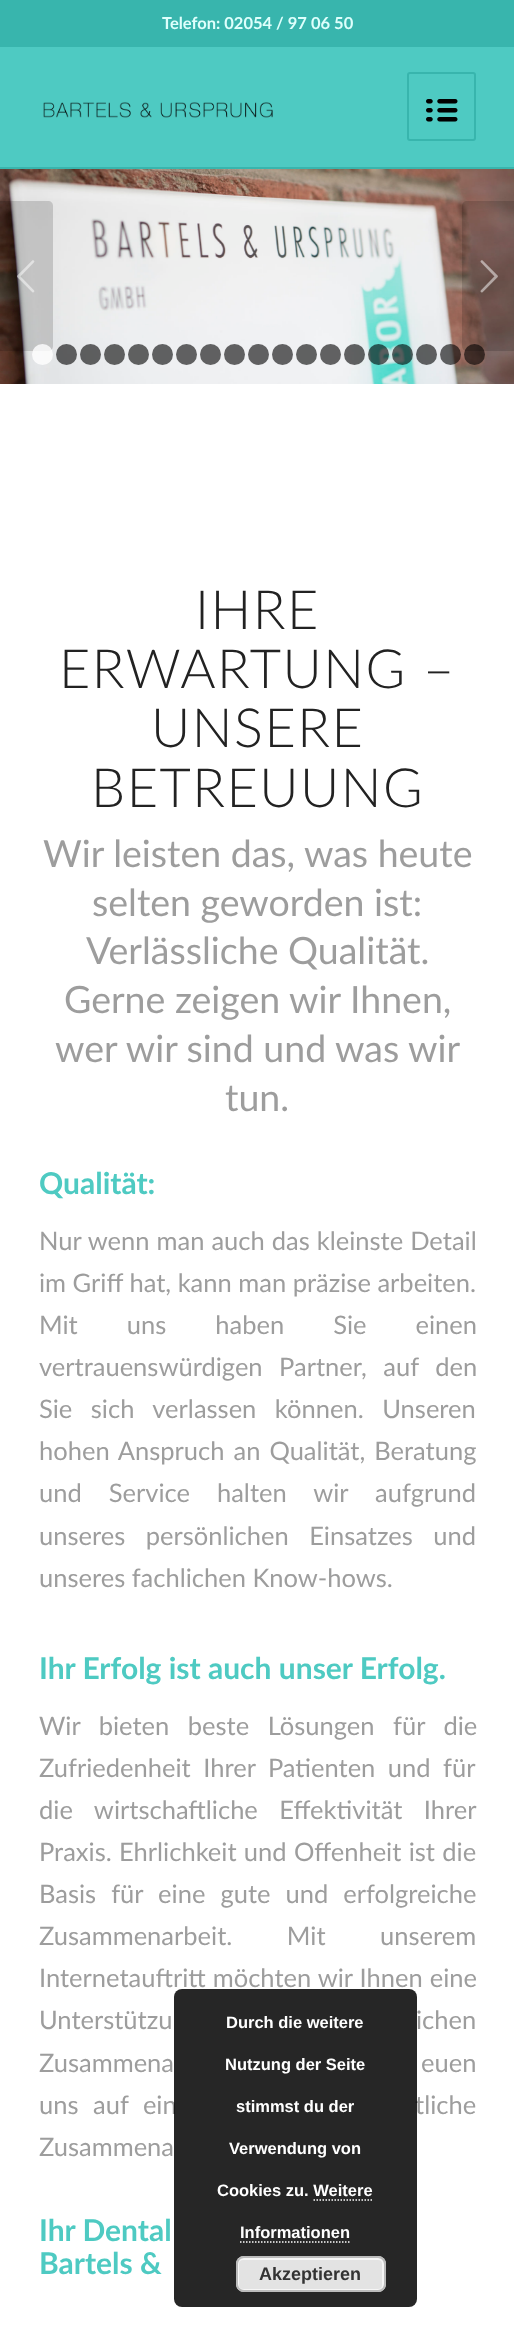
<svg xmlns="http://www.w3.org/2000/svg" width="514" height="2351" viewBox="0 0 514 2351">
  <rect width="100%" height="100%" fill="#fff"/>
  <path d="M0 0h514v47H0z" fill="#38b5ad"/>
  <path d="M0 47h514v120H0z" fill="#4ecac2"/>
  <path d="M0 167h514v2H0z" fill="#38b5ad"/>
  <image x="43" y="102" width="230" height="16" href="img/1.png"/>
  <rect x="408" y="73" width="67" height="67" rx="2" fill="none" stroke="#38b5ad" stroke-width="2"/>
  <image x="426" y="99" width="32" height="23" href="img/2.png"/>
  <image x="0" y="169" width="514" height="215" href="img/3.png"/>
  <path d="M0 201H48C51 201 53 203 53 206V346C53 349 51 351 48 351H0Z" fill="#00000026"/>
  <image x="17" y="260" width="18" height="33" href="img/4.png"/>
  <path d="M467 201H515V351H467C464 351 462 349 462 346V206C462 203 464 201 467 201Z" fill="#00000026"/>
  <image x="480" y="260" width="18" height="33" href="img/5.png"/>
  <circle cx="42.5" cy="354.5" r="10.5" fill="#ffffffcc"/>
  <circle cx="66.5" cy="354.5" r="10.5" fill="#00000099"/>
  <circle cx="90.5" cy="354.5" r="10.5" fill="#00000099"/>
  <circle cx="114.5" cy="354.5" r="10.5" fill="#5e5f5f"/>
  <circle cx="138.5" cy="354.5" r="10.5" fill="#5f6060"/>
  <circle cx="162.5" cy="354.5" r="10.5" fill="#5f6061"/>
  <circle cx="186.5" cy="354.5" r="10.5" fill="#606061"/>
  <circle cx="210.5" cy="354.5" r="10.5" fill="#606061"/>
  <circle cx="234.5" cy="354.5" r="10.5" fill="#606061"/>
  <circle cx="258.5" cy="354.5" r="10.5" fill="#606061"/>
  <circle cx="282.5" cy="354.5" r="10.5" fill="#606061"/>
  <circle cx="306.5" cy="354.5" r="10.5" fill="#606161"/>
  <circle cx="330.5" cy="354.5" r="10.5" fill="#616162"/>
  <circle cx="354.5" cy="354.5" r="10.5" fill="#00000099"/>
  <circle cx="378.5" cy="354.5" r="10.5" fill="#00000099"/>
  <circle cx="402.5" cy="354.5" r="10.5" fill="#00000099"/>
  <circle cx="426.5" cy="354.5" r="10.5" fill="#00000099"/>
  <circle cx="450.5" cy="354.5" r="10.5" fill="#00000099"/>
  <circle cx="474.5" cy="354.5" r="10.5" fill="#00000099"/>
  <text x="162" y="29" font-family="Lato" font-size="16.5" font-weight="bold" fill="#defffc">Telefon: 02054 / 97 06 50</text>
  <g font-family="Lato" font-size="54" font-weight="300" letter-spacing="1.5" fill="#222">
    <text x="195" y="629">IHRE</text>
    <text x="59" y="688">ERWARTUNG –</text>
    <text x="151" y="747">UNSERE</text>
    <text x="91" y="807">BETREUUNG</text>
  </g>
  <g font-family="Lato" font-size="37.5" fill="#9d9d9d">
    <text x="43" y="867">Wir leisten das, was heute</text>
    <text x="92" y="916">selten geworden ist:</text>
    <text x="86" y="964">Verlässliche Qualität.</text>
    <text x="64" y="1013">Gerne zeigen wir Ihnen,</text>
    <text x="55" y="1062">wer wir sind und was wir</text>
    <text x="225" y="1111">tun.</text>
  </g>
  <text x="39" y="1194" font-family="Lato" font-size="30" font-weight="bold" fill="#4ecac2">Qualität:</text>
  <g font-family="Lato" font-size="25.5" fill="#9d9d9d">
    <text x="39" y="1250" word-spacing="0.5">Nur wenn man auch das kleinste Detail</text>
    <text x="39" y="1292">im Griff hat, kann man präzise arbeiten.</text>
    <text x="39" y="1334" word-spacing="42.5">Mit uns haben Sie einen</text>
    <text x="39" y="1376" word-spacing="10">vertrauenswürdigen Partner, auf den</text>
    <text x="39" y="1418" word-spacing="12">Sie sich verlassen können. Unseren</text>
    <text x="39" y="1460" word-spacing="2.5">hohen Anspruch an Qualität, Beratung</text>
    <text x="39" y="1502" word-spacing="20.5">und Service halten wir aufgrund</text>
    <text x="39" y="1545" word-spacing="14">unseres persönlichen Einsatzes und</text>
    <text x="39" y="1587">unseres fachlichen Know-hows.</text>
  </g>
  <text x="39" y="1679" font-family="Lato" font-size="30" font-weight="bold" fill="#4ecac2">Ihr Erfolg ist auch unser Erfolg.</text>
  <g font-family="Lato" font-size="25.5" fill="#9d9d9d">
    <text x="39" y="1735" word-spacing="12">Wir bieten beste Lösungen für die</text>
    <text x="39" y="1777" word-spacing="6">Zufriedenheit Ihrer Patienten und für</text>
    <text x="39" y="1819" word-spacing="15">die wirtschaftliche Effektivität Ihrer</text>
    <text x="39" y="1861" word-spacing="0.75">Praxis. Ehrlichkeit und Offenheit ist die</text>
    <text x="39" y="1903" word-spacing="8.5">Basis für eine gute und erfolgreiche</text>
    <text x="39" y="1945" word-spacing="48">Zusammenarbeit. Mit unserem</text>
    <text x="39" y="1987" word-spacing="0.5">Internetauftritt möchten wir Ihnen eine</text>
    <text x="39" y="2029" word-spacing="33">Unterstützu</text>
    <text x="416" y="2029" word-spacing="33">ichen</text>
    <text x="39" y="2072" word-spacing="14">Zusammena</text>
    <text x="421" y="2072" word-spacing="14">euen</text>
    <text x="39" y="2114" word-spacing="8">uns auf ein</text>
    <text x="415" y="2114" word-spacing="8">tliche</text>
    <text x="39" y="2156">Zusammena</text>
  </g>
  <g font-family="Lato" font-size="30" font-weight="bold" fill="#4ecac2">
    <text x="39" y="2241">Ihr Dental</text>
    <text x="39" y="2274">Bartels &amp;</text>
  </g>
  <rect x="174" y="1989" width="243" height="318" rx="8" fill="#000000d9"/>
  <g font-family="Liberation Sans" font-size="16.5" font-weight="bold" fill="#fff">
    <text x="226" y="2028">Durch die weitere</text>
    <text x="225" y="2070">Nutzung der Seite</text>
    <text x="236" y="2112">stimmst du der</text>
    <text x="229" y="2154">Verwendung von</text>
    <text x="217" y="2196">Cookies zu. Weitere</text>
    <text x="240" y="2238">Informationen</text>
  </g>
  <path d="M313.5 2200H373.5" fill="none" stroke="#fff" stroke-width="1.5" stroke-dasharray="1.5 1.5"/>
  <path d="M240 2242H349.5" fill="none" stroke="#fff" stroke-width="1.5" stroke-dasharray="1.5 1.5"/>
  <rect x="236" y="2256" width="150" height="36" rx="8" fill="#e3e3e3"/>
  <rect x="238" y="2259" width="145" height="31" rx="5" fill="none" stroke="#f6f6f6" stroke-width="2"/>
  <rect x="237" y="2257" width="148" height="34" rx="7" fill="none" stroke="#bbb" stroke-width="2"/>
  <text x="259" y="2280" font-family="Liberation Sans" font-size="18" font-weight="bold" fill="#333">Akzeptieren</text>
</svg>
